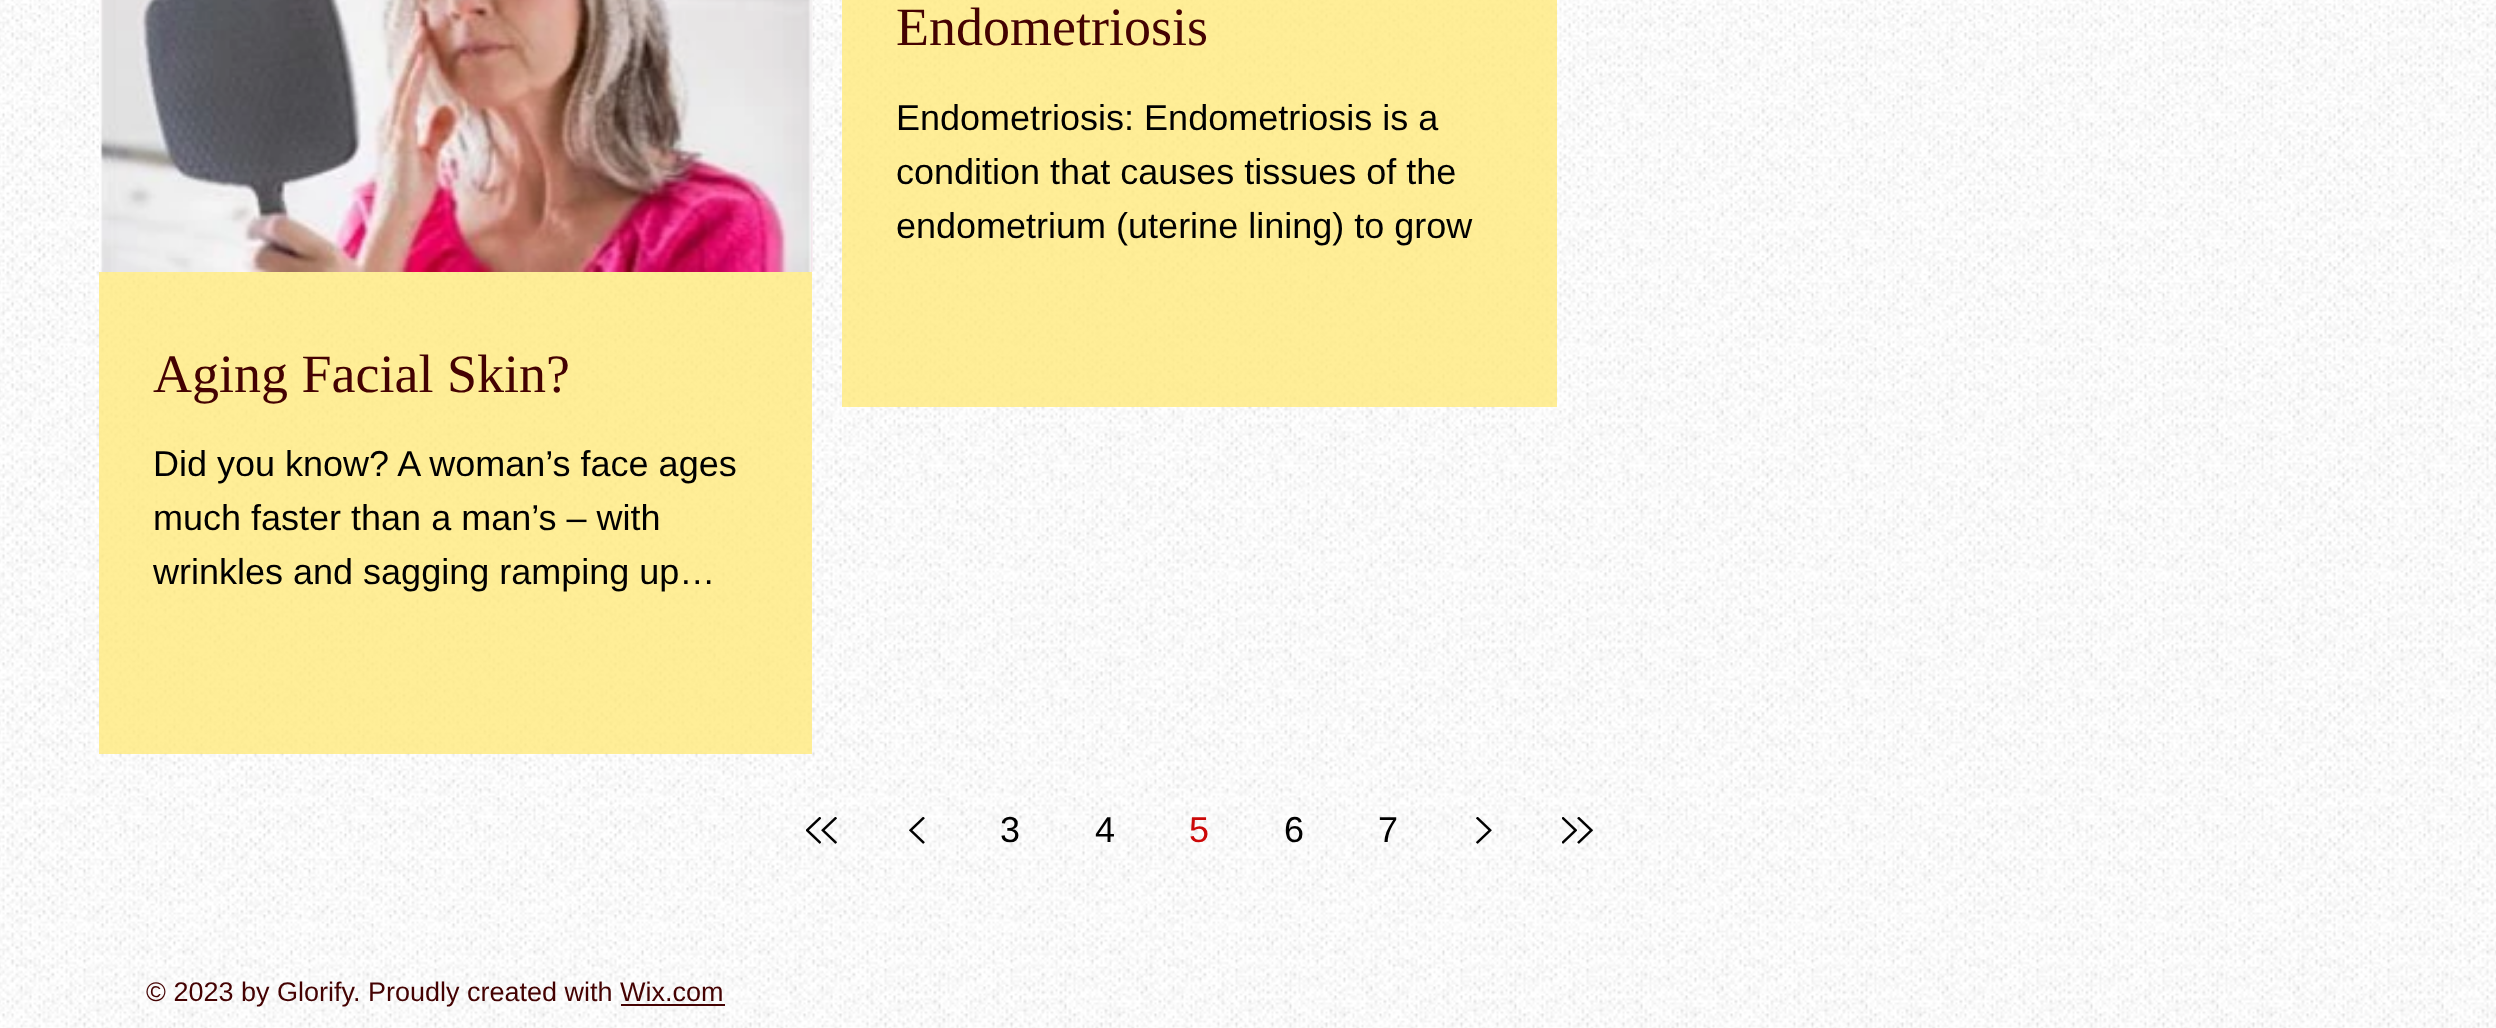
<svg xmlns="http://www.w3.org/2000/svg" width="2496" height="1028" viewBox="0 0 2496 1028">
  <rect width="100%" height="100%" fill="#fff"/>
  <image x="0" y="0" width="2496" height="1028" href="img/1.png"/>
  <path d="M842 0h715v407H842z" fill="#ffe97ac7"/>
  <image x="810" y="0" width="3" height="272" href="img/3.png"/>
  <image x="99" y="0" width="714" height="272" href="img/2.png"/>
  <path d="M99 272h713v482H99z" fill="#ffe97ac7"/>
  <image x="806" y="817" width="15" height="27" href="img/4.png"/>
  <image x="821" y="817" width="16" height="27" href="img/5.png"/>
  <image x="909" y="817" width="16" height="27" href="img/6.png"/>
  <image x="1476" y="817" width="16" height="27" href="img/7.png"/>
  <image x="1562" y="817" width="15" height="27" href="img/8.png"/>
  <image x="1577" y="817" width="16" height="27" href="img/9.png"/>
  <path d="M621 1004h104v2H621z" fill="#440202"/>
  <text x="896" y="45" font-family="Liberation Serif" font-size="54" fill="#440202">Endometriosis</text>
  <g font-family="Liberation Sans" font-size="36" fill="#000">
    <text x="896" y="130">Endometriosis: Endometriosis is a</text>
    <text x="896" y="184">condition that causes tissues of the</text>
    <text x="896" y="238">endometrium (uterine lining) to grow</text>
  </g>
  <text x="153" y="392" font-family="Liberation Serif" font-size="54" fill="#440202">Aging Facial Skin?</text>
  <g font-family="Liberation Sans" font-size="36" fill="#000">
    <text x="153" y="476">Did you know? A woman’s face ages</text>
    <text x="153" y="530">much faster than a man’s – with</text>
    <text x="153" y="584">wrinkles and sagging ramping up…</text>
    <text x="1000" y="842">3</text>
    <text x="1095" y="842">4</text>
  </g>
  <text x="1189" y="842" font-family="Liberation Sans" font-size="36" fill="#cc0808">5</text>
  <g font-family="Liberation Sans" font-size="36" fill="#000">
    <text x="1284" y="842">6</text>
    <text x="1378" y="842">7</text>
  </g>
  <text x="146" y="1001" font-family="Liberation Sans" font-size="27" fill="#440202">© 2023 by Glorify. Proudly created with Wix.com</text>
</svg>
